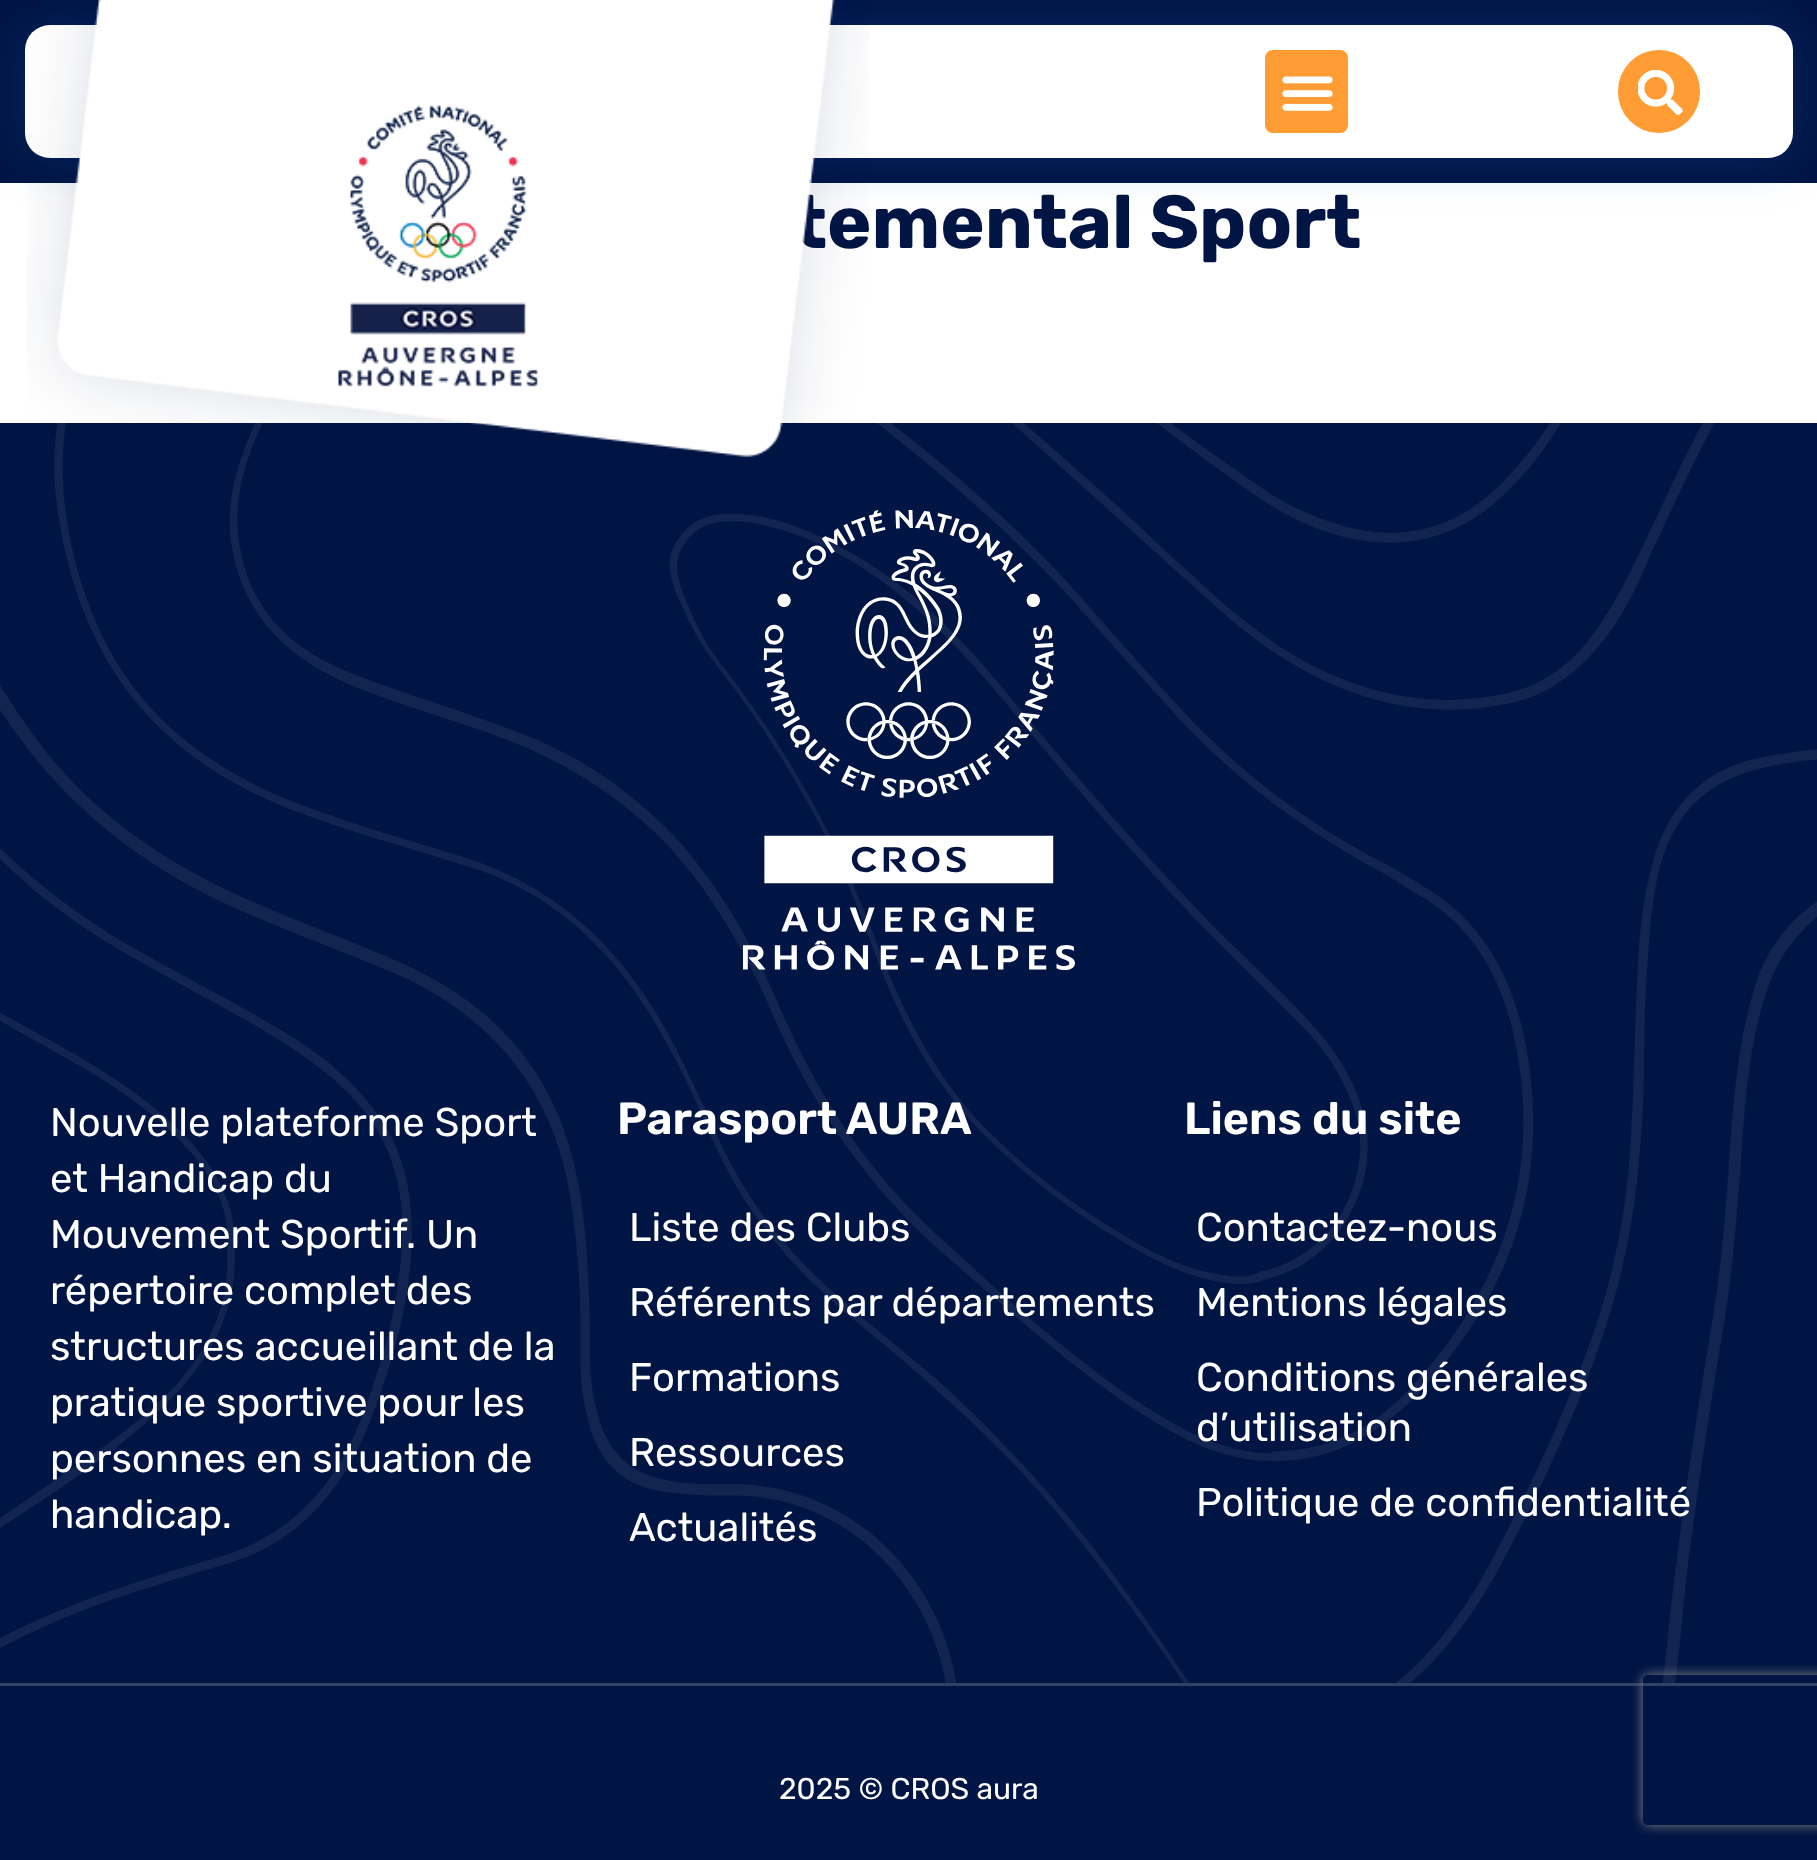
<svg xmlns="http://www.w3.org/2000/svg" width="1817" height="1860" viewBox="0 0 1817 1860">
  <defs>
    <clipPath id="clip1"><path d="M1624 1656H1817V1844H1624ZM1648 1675H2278C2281 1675 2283 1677 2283 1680V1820C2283 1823 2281 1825 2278 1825H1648C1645 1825 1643 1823 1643 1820V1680C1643 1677 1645 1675 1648 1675Z" clip-rule="evenodd"/></clipPath>
  </defs>
  <rect width="100%" height="100%" fill="#fff"/>
  <path d="M0 0h1817v183H0z" fill="#001544"/>
  <rect x="25" y="25" width="1768" height="133" rx="25" fill="#194db645" filter="blur(25px)"/>
  <rect x="25" y="25" width="1768" height="133" rx="25" fill="#fff"/>
  <rect x="1265" y="50" width="83" height="83" rx="8" fill="#ff9c34"/>
  <image x="1282" y="76" width="51" height="35" href="img/2.png"/>
  <rect x="1618" y="50" width="82" height="83" rx="41" fill="#ff9c34"/>
  <image x="1638" y="70" width="45" height="45" href="img/3.png"/>
  <path d="M0 423h1817v1260H0z" fill="#001544"/>
  <image x="0" y="423" width="1817" height="1260" href="img/4.png"/>
  <image x="743" y="510" width="332" height="460" href="img/5.png"/>
  <path d="M0 1686h1817v174H0z" fill="#001544"/>
  <path d="M0 1683h1817v3H0z" fill="#304168"/>
  <g clip-path="url(#clip1)">
    <rect x="1643" y="1675" width="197" height="150" rx="5" fill="#808080" filter="blur(6px)"/>
  </g>
  <text x="792" y="248" font-family="Rubik" font-size="75" font-weight="bold" fill="#001544">temental Sport</text>
  <image x="27" y="0" width="842" height="458" href="img/1.png"/>
  <g font-family="Rubik" font-size="40" fill="#fff">
    <text x="50" y="1136">Nouvelle plateforme Sport</text>
    <text x="50" y="1192">et Handicap du</text>
    <text x="50" y="1248">Mouvement Sportif. Un</text>
    <text x="50" y="1304">répertoire complet des</text>
    <text x="50" y="1360">structures accueillant de la</text>
    <text x="50" y="1416">pratique sportive pour les</text>
    <text x="50" y="1472">personnes en situation de</text>
    <text x="50" y="1528">handicap.</text>
  </g>
  <text x="617" y="1134" font-family="Rubik" font-size="45" font-weight="600" fill="#fff">Parasport AURA</text>
  <g font-family="Rubik" font-size="40" fill="#fff">
    <text x="629" y="1241">Liste des Clubs</text>
    <text x="629" y="1316">Référents par départements</text>
    <text x="629" y="1391">Formations</text>
    <text x="629" y="1466">Ressources</text>
    <text x="629" y="1541">Actualités</text>
  </g>
  <text x="1184" y="1134" font-family="Rubik" font-size="45" font-weight="600" fill="#fff">Liens du site</text>
  <g font-family="Rubik" font-size="40" fill="#fff">
    <text x="1196" y="1241">Contactez-nous</text>
    <text x="1196" y="1316">Mentions légales</text>
    <text x="1196" y="1391">Conditions générales</text>
    <text x="1196" y="1441">d’utilisation</text>
    <text x="1196" y="1516">Politique de confidentialité</text>
  </g>
  <text x="779" y="1799" font-family="Rubik" font-size="30" fill="#fff">2025 © CROS aura</text>
</svg>
